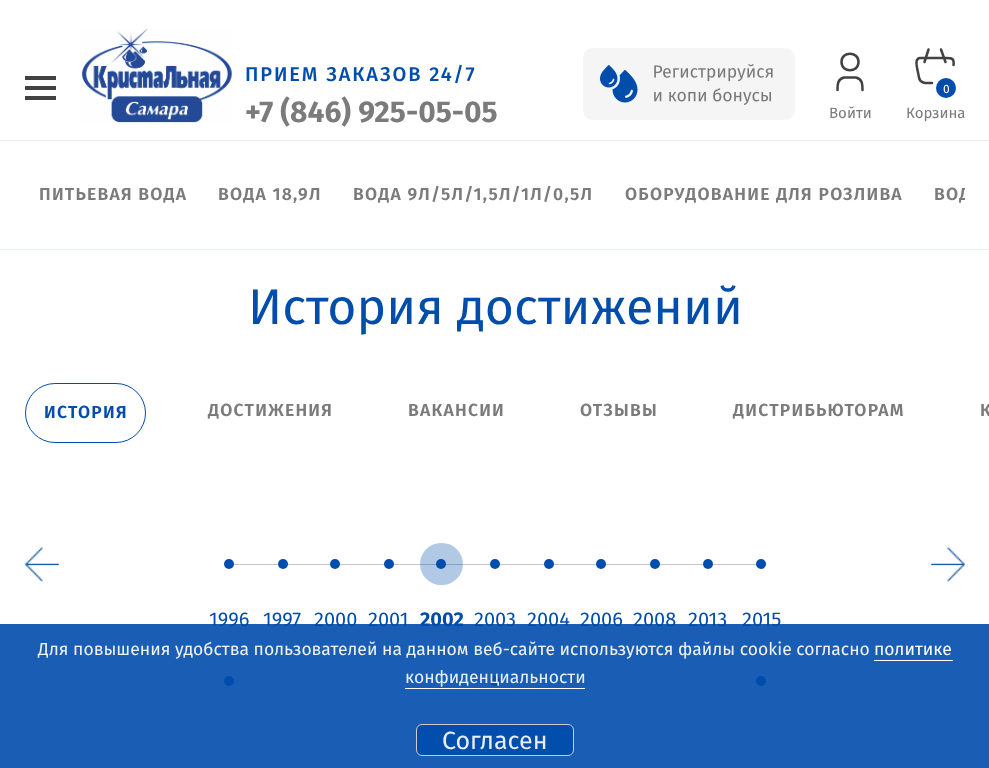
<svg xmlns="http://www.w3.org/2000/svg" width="989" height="768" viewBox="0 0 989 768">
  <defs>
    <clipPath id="clip1"><path d="M25 166h940v58H25z"/></clipPath>
  </defs>
  <rect width="100%" height="100%" fill="#fff"/>
  <path d="M25 76h31v4H25z" fill="#424242"/>
  <path d="M25 86h31v4H25z" fill="#424242"/>
  <path d="M25 96h31v4H25z" fill="#424242"/>
  <image x="81" y="28" width="152" height="95" href="img/1.png"/>
  <image x="583" y="48" width="212" height="72" href="img/2.png"/>
  <path d="M841.5 62C841.5 73 858.5 73 858.5 62C858.5 51 841.5 51 841.5 62ZM837.5 90C837.5 84.5 837.5 79 844 77.5H856C862.5 79 862.5 84.5 862.5 90" fill="none" stroke="#424242" stroke-width="2.5" stroke-linecap="round" stroke-linejoin="round"/>
  <path d="M945.5 62L941 49.5M924.5 62L928.5 49.5M932 83C927 83 920 84 919 77.5L917 67.5C916.5 64.5 915 59 919.5 58H944.5C951 58 954.5 57.5 953.5 65" fill="none" stroke="#424242" stroke-width="2.5" stroke-linecap="round" stroke-linejoin="round"/>
  <circle cx="946" cy="88" r="10" fill="#004dac"/>
  <path d="M0 140h989v1H0z" fill="#e5edf7"/>
  <path d="M0 249h989v1H0z" fill="#e5edf7"/>
  <rect x="25.5" y="383.5" width="120" height="59" rx="29.5" fill="none" stroke="#004dac"/>
  <image x="25" y="547" width="34" height="35" href="img/3.png"/>
  <image x="931" y="547" width="34" height="35" href="img/4.png"/>
  <path d="M233 564h525v1H233z" fill="#c6c6c6"/>
  <circle cx="229" cy="564" r="5" fill="#004dac"/>
  <circle cx="283" cy="564" r="5" fill="#004dac"/>
  <circle cx="335" cy="564" r="5" fill="#004dac"/>
  <circle cx="389" cy="564" r="5" fill="#004dac"/>
  <rect x="420" y="543" width="43" height="42" rx="21" fill="#004dac4d"/>
  <circle cx="441" cy="564" r="5" fill="#004dac"/>
  <circle cx="495" cy="564" r="5" fill="#004dac"/>
  <circle cx="549" cy="564" r="5" fill="#004dac"/>
  <circle cx="601" cy="564" r="5" fill="#004dac"/>
  <circle cx="655" cy="564" r="5" fill="#004dac"/>
  <circle cx="708" cy="564" r="5" fill="#004dac"/>
  <circle cx="761" cy="564" r="5" fill="#004dac"/>
  <circle cx="229" cy="681" r="5" fill="#004dac"/>
  <circle cx="495" cy="681" r="5" fill="#004dac"/>
  <circle cx="761" cy="681" r="5" fill="#004dac"/>
  <text x="245" y="81" font-family="Fira Sans" font-size="20" font-weight="500" letter-spacing="1.9" fill="#004dac">ПРИЕМ ЗАКАЗОВ 24/7</text>
  <text x="245" y="122" font-family="Fira Sans" font-size="30" font-weight="bold" fill="#7b7b7b">+7 (846) 925-05-05</text>
  <text x="829" y="118" font-family="Fira Sans" font-size="15" fill="#7b7b7b">Войти</text>
  <text x="943" y="93" font-family="Fira Sans" font-size="12" fill="#fff">0</text>
  <text x="906" y="118" font-family="Fira Sans" font-size="15" fill="#7b7b7b">Корзина</text>
  <g font-family="Fira Sans" font-size="17.5" font-weight="600" letter-spacing="1.25" fill="#7b7b7b">
    <text x="39" y="200">ПИТЬЕВАЯ ВОДА</text>
    <text x="218" y="200">ВОДА 18,9Л</text>
    <text x="353" y="200">ВОДА 9Л/5Л/1,5Л/1Л/0,5Л</text>
    <text x="625" y="200">ОБОРУДОВАНИЕ ДЛЯ РОЗЛИВА</text>
  </g>
  <g clip-path="url(#clip1)">
    <text x="934" y="200" font-family="Fira Sans" font-size="17.5" font-weight="600" letter-spacing="1.25" fill="#7b7b7b">ВОД</text>
  </g>
  <text x="248" y="324" font-family="Fira Sans" font-size="50" fill="#004dac">История достижений</text>
  <text x="44" y="418" font-family="Fira Sans" font-size="17.5" font-weight="600" letter-spacing="1.25" fill="#004dac">ИСТОРИЯ</text>
  <g font-family="Fira Sans" font-size="17.5" font-weight="600" letter-spacing="1.25" fill="#7b7b7b">
    <text x="208" y="416">ДОСТИЖЕНИЯ</text>
    <text x="408" y="416">ВАКАНСИИ</text>
    <text x="580" y="416">ОТЗЫВЫ</text>
    <text x="733" y="416">ДИСТРИБЬЮТОРАМ</text>
    <text x="980" y="416">К</text>
  </g>
  <g font-family="Fira Sans" font-size="20" fill="#004dac">
    <text x="209" y="626">1996</text>
    <text x="263" y="626">1997</text>
    <text x="314" y="626">2000</text>
    <text x="368" y="626">2001</text>
  </g>
  <text x="420" y="626" font-family="Fira Sans" font-size="20" font-weight="bold" fill="#004dac">2002</text>
  <g font-family="Fira Sans" font-size="20" fill="#004dac">
    <text x="474" y="626">2003</text>
    <text x="527" y="626">2004</text>
    <text x="580" y="626">2006</text>
    <text x="633" y="626">2008</text>
    <text x="688" y="626">2013</text>
    <text x="742" y="626">2015</text>
  </g>
  <path d="M0 624h989v144H0z" fill="#004dace6"/>
  <text x="38" y="655" font-family="Fira Sans" font-size="17.5" fill="#f2f2f2">Для повышения удобства пользователей на данном веб-сайте используются файлы cookie согласно</text>
  <text x="874" y="655" font-family="Fira Sans" font-size="17.5" fill="#fff">политике</text>
  <path d="M874 660h79v1H874z" fill="#fff"/>
  <text x="405" y="683" font-family="Fira Sans" font-size="17.5" fill="#e8eff8">конфиденциальности</text>
  <path d="M405 688h180v1H405z" fill="#fff"/>
  <rect x="416.5" y="724.5" width="157" height="31" rx="5.5" fill="#004dace6" stroke="#ccc"/>
  <text x="442" y="749" font-family="Fira Sans" font-size="25" fill="#e8eff8">Согласен</text>
</svg>
